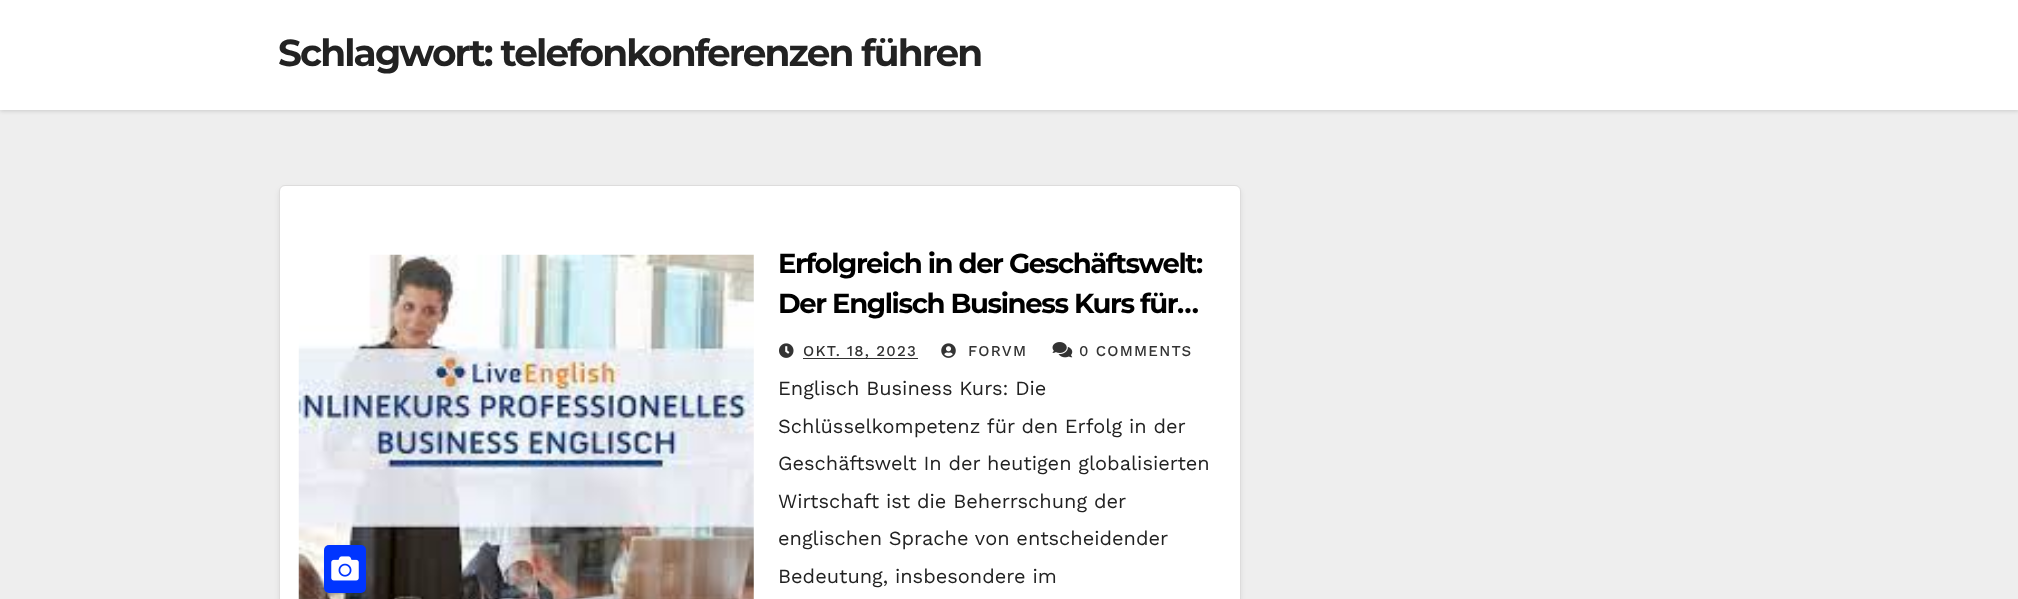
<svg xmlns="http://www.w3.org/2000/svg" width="2018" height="599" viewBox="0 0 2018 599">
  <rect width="100%" height="100%" fill="#eee"/>
  <path d="M0 -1h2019v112H0z" fill="#00000026" filter="blur(2px)"/>
  <path d="M0 0h2018v110H0z" fill="#fff"/>
  <rect x="279" y="188" width="962" height="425" rx="6" fill="#00000014" filter="blur(2.5px)"/>
  <rect x="279.5" y="185.5" width="961" height="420" rx="5.5" fill="#fff" stroke="#dddcdc"/>
  <image x="298" y="254" width="456" height="345" href="img/1.png"/>
  <rect x="324" y="545" width="42" height="48" rx="5" fill="#0035ff"/>
  <image x="331" y="556" width="28" height="25" href="img/2.png"/>
  <image x="779" y="343" width="15" height="15" href="img/3.png"/>
  <path d="M803 358h115v1H803z" fill="#333"/>
  <image x="941" y="343" width="15" height="15" href="img/4.png"/>
  <image x="1052" y="342" width="21" height="16" href="img/5.png"/>
  <text x="278" y="66" font-family="Montserrat" font-size="37.5" font-weight="bold" letter-spacing="-1.9" fill="#222">Schlagwort: telefonkonferenzen führen</text>
  <g font-family="Montserrat" font-size="27.5" font-weight="bold" letter-spacing="-1.4" fill="#000">
    <text x="778" y="273">Erfolgreich in der Geschäftswelt:</text>
    <text x="778" y="313">Der Englisch Business Kurs für…</text>
  </g>
  <g font-family="Work Sans" font-size="15" font-weight="500" letter-spacing="1.25" fill="#333">
    <text x="803" y="356">OKT. 18, 2023</text>
    <text x="968" y="356">FORVM</text>
    <text x="1079" y="356">0 COMMENTS</text>
  </g>
  <g font-family="Work Sans" font-size="20" fill="#222">
    <text x="778" y="395">Englisch Business Kurs: Die</text>
    <text x="778" y="433">Schlüsselkompetenz für den Erfolg in der</text>
    <text x="778" y="470">Geschäftswelt In der heutigen globalisierten</text>
    <text x="778" y="508">Wirtschaft ist die Beherrschung der</text>
    <text x="778" y="545">englischen Sprache von entscheidender</text>
    <text x="778" y="583">Bedeutung, insbesondere im</text>
  </g>
</svg>
